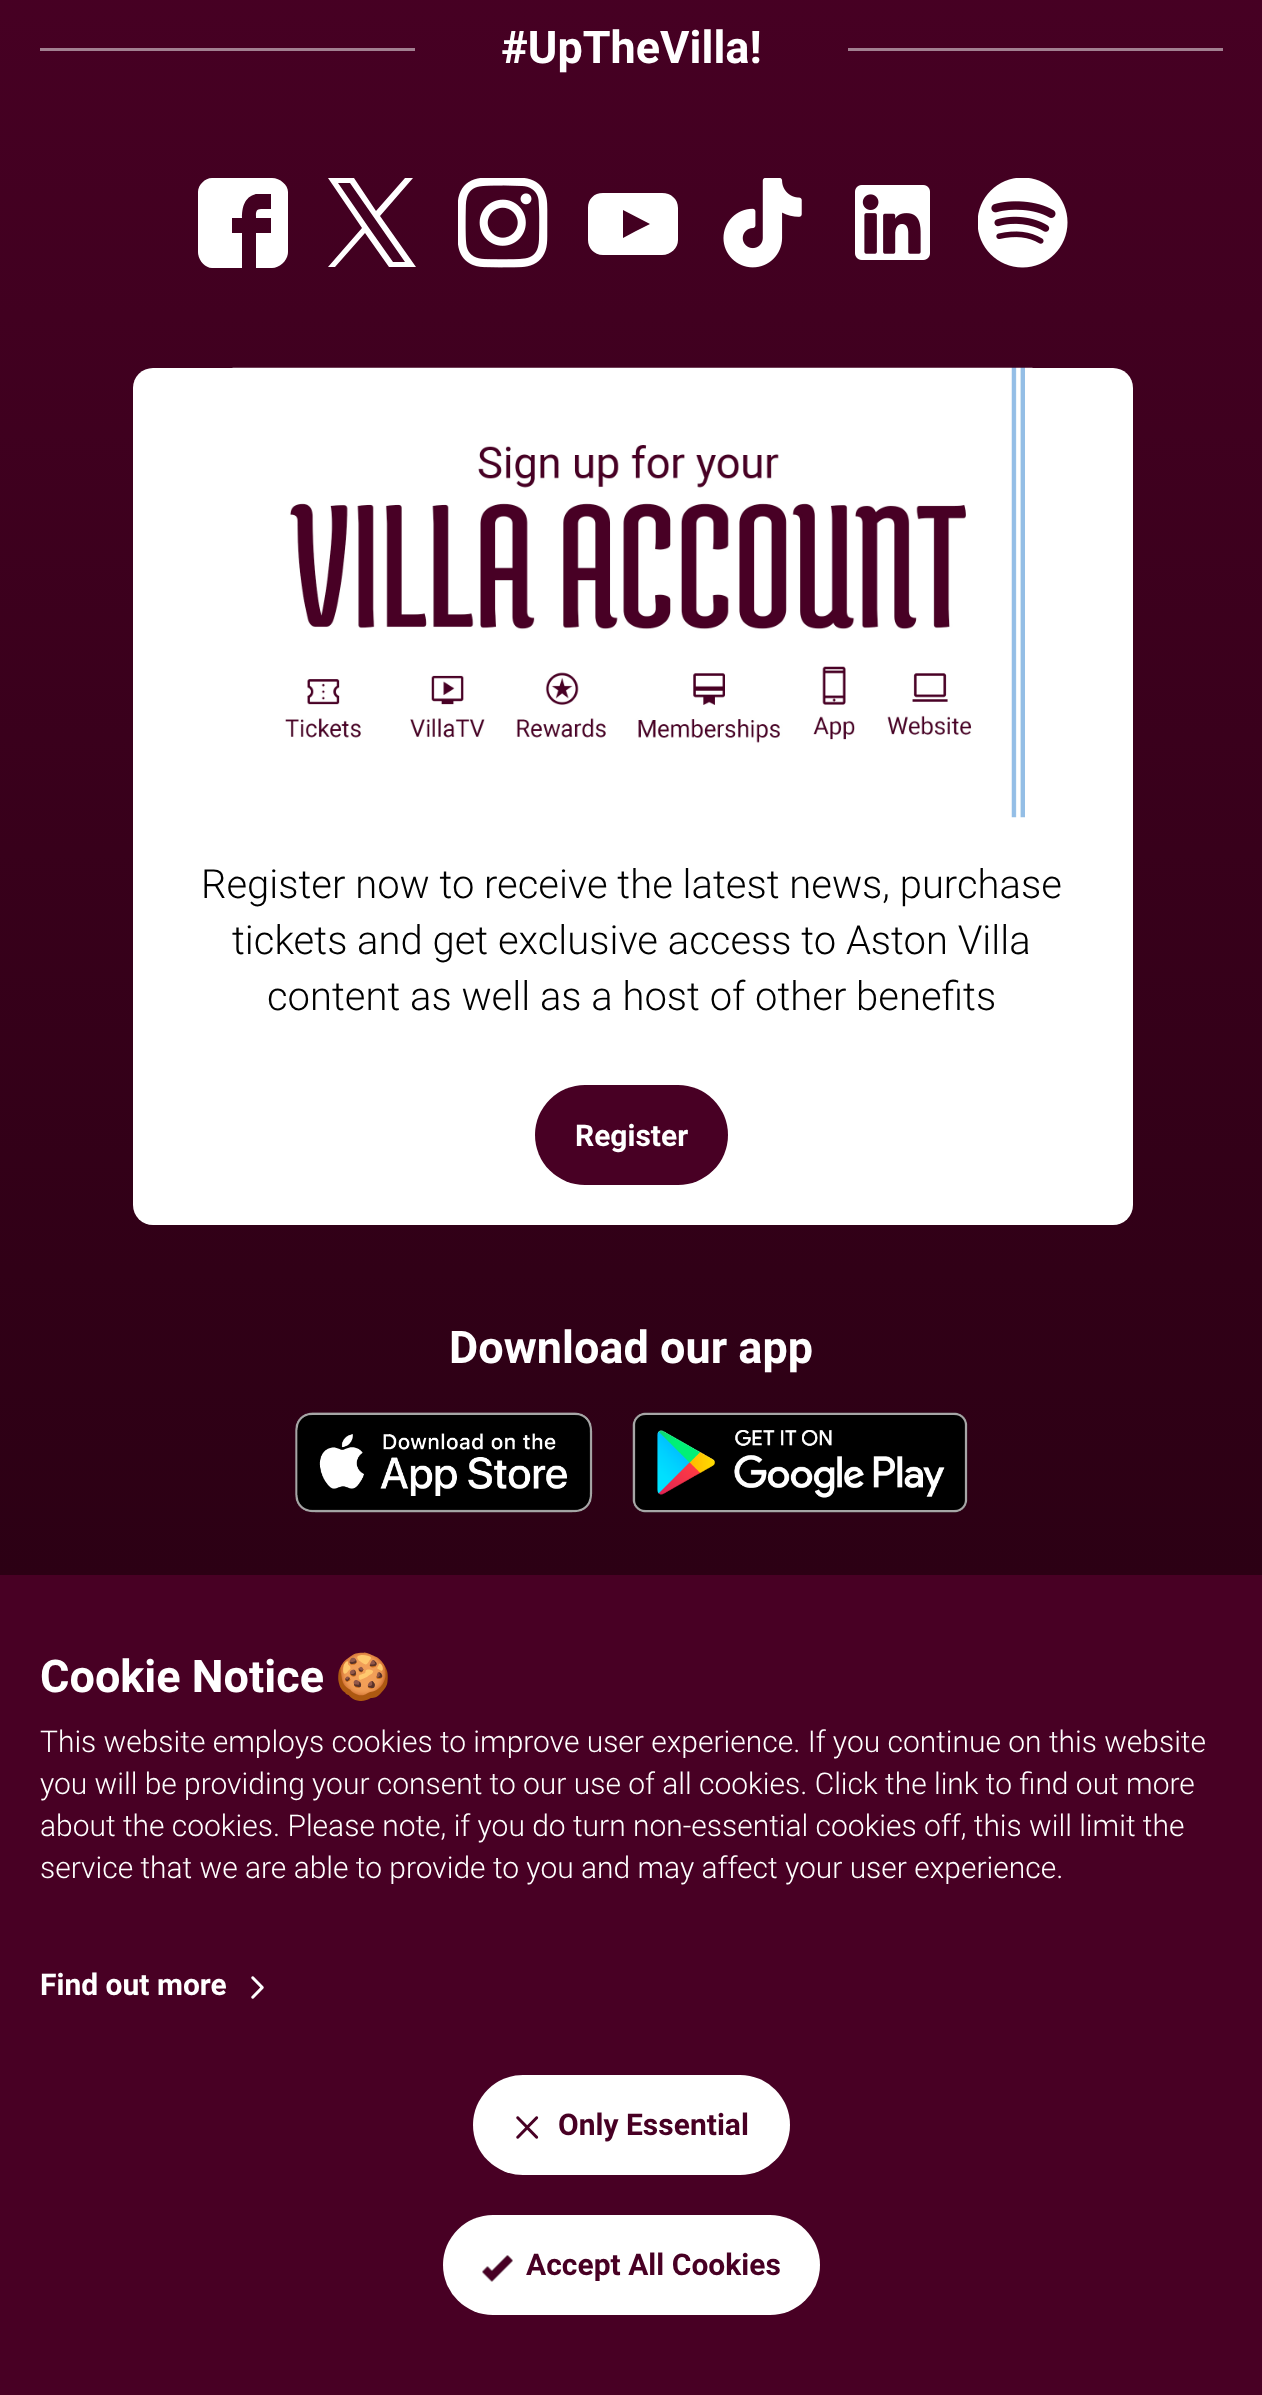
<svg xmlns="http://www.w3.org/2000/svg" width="1262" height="2395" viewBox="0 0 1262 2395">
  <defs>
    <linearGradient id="g1" gradientUnits="userSpaceOnUse" x1="631" y1="-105" x2="631" y2="1693"><stop offset="0" stop-color="#480024"/><stop offset="1" stop-color="#2a0013"/></linearGradient>
  </defs>
  <rect width="100%" height="100%" fill="#fff"/>
  <path d="M0 0h1262v1575H0z" fill="url(#g1)"/>
  <path d="M40 48h375v3H40z" fill="#a28091"/>
  <path d="M848 48h375v3H848z" fill="#a28091"/>
  <path d="M288 192C288 185 280 178 272 178H212C205 178 198 185 198 192V252C198 260 205 268 212 268H242V233H232V218H242C242 208 244 197 256 194H271V209H261C255 209 256 214 256 218H271V233H256V268H272C280 268 288 260 288 252Z" fill="#fff"/>
  <path d="M380 216L413 178H405L376 211L354 178H328L362 228L328 267H335L365 233L389 267H416ZM369 228L338 183H350L405 262H393Z" fill="#fff"/>
  <image x="458" y="178" width="90" height="90" href="img/1.png"/>
  <path d="M662 193H603C594 193 588 199 588 208V240C588 248 594 255 603 255H662C671 255 678 248 678 240V208C678 199 671 193 662 193ZM636 231L623 238V210L650 224Z" fill="#fff"/>
  <image x="723" y="178" width="79" height="90" href="img/2.png"/>
  <image x="855" y="185" width="75" height="75" href="img/3.png"/>
  <image x="978" y="178" width="90" height="90" href="img/4.png"/>
  <rect x="133" y="368" width="1000" height="857" rx="20" fill="#fff"/>
  <image x="232" y="367" width="801" height="451" href="img/5.png"/>
  <rect x="535" y="1085" width="193" height="100" rx="50" fill="#480024"/>
  <image x="295" y="1412" width="298" height="101" href="img/6.png"/>
  <image x="632" y="1412" width="336" height="101" href="img/7.png"/>
  <path d="M0 1575h1262v820H0z" fill="#480024"/>
  <image x="251" y="1976" width="13" height="23" href="img/8.png"/>
  <rect x="473" y="2075" width="317" height="100" rx="50" fill="#fff"/>
  <image x="516" y="2116" width="23" height="23" href="img/9.png"/>
  <rect x="443" y="2215" width="377" height="100" rx="50" fill="#fff"/>
  <image x="482" y="2255" width="31" height="27" href="img/10.png"/>
  <text x="501" y="63" font-family="Roboto" font-size="45" font-weight="bold" fill="#fff">#UpTheVilla!</text>
  <g font-family="Roboto" font-size="40" font-weight="300" fill="#000">
    <text x="201" y="898">Register now to receive the latest news, purchase</text>
    <text x="232" y="954">tickets and get exclusive access to Aston Villa</text>
    <text x="267" y="1010">content as well as a host of other benefits</text>
  </g>
  <text x="575" y="1146" font-family="Roboto" font-size="30" font-weight="bold" fill="#fff">Register</text>
  <g font-family="Roboto" font-size="45" font-weight="bold" fill="#fff">
    <text x="449" y="1363">Download our app</text>
    <text x="40" y="1692">Cookie Notice</text>
  </g>
  <text x="335" y="1692" font-family="Noto Color Emoji" font-size="45" font-weight="bold" fill="#fff">🍪</text>
  <g font-family="Roboto" font-size="30" font-weight="300" fill="#fff">
    <text x="40" y="1752">This website employs cookies to improve user experience. If you continue on this website</text>
    <text x="40" y="1794">you will be providing your consent to our use of all cookies. Click the link to find out more</text>
    <text x="40" y="1836">about the cookies. Please note, if you do turn non-essential cookies off, this will limit the</text>
    <text x="40" y="1878">service that we are able to provide to you and may affect your user experience.</text>
  </g>
  <text x="40" y="1995" font-family="Roboto" font-size="30" font-weight="bold" fill="#fff">Find out more</text>
  <g font-family="Roboto" font-size="30" font-weight="bold" fill="#480024">
    <text x="558" y="2135">Only Essential</text>
    <text x="526" y="2275">Accept All Cookies</text>
  </g>
</svg>
